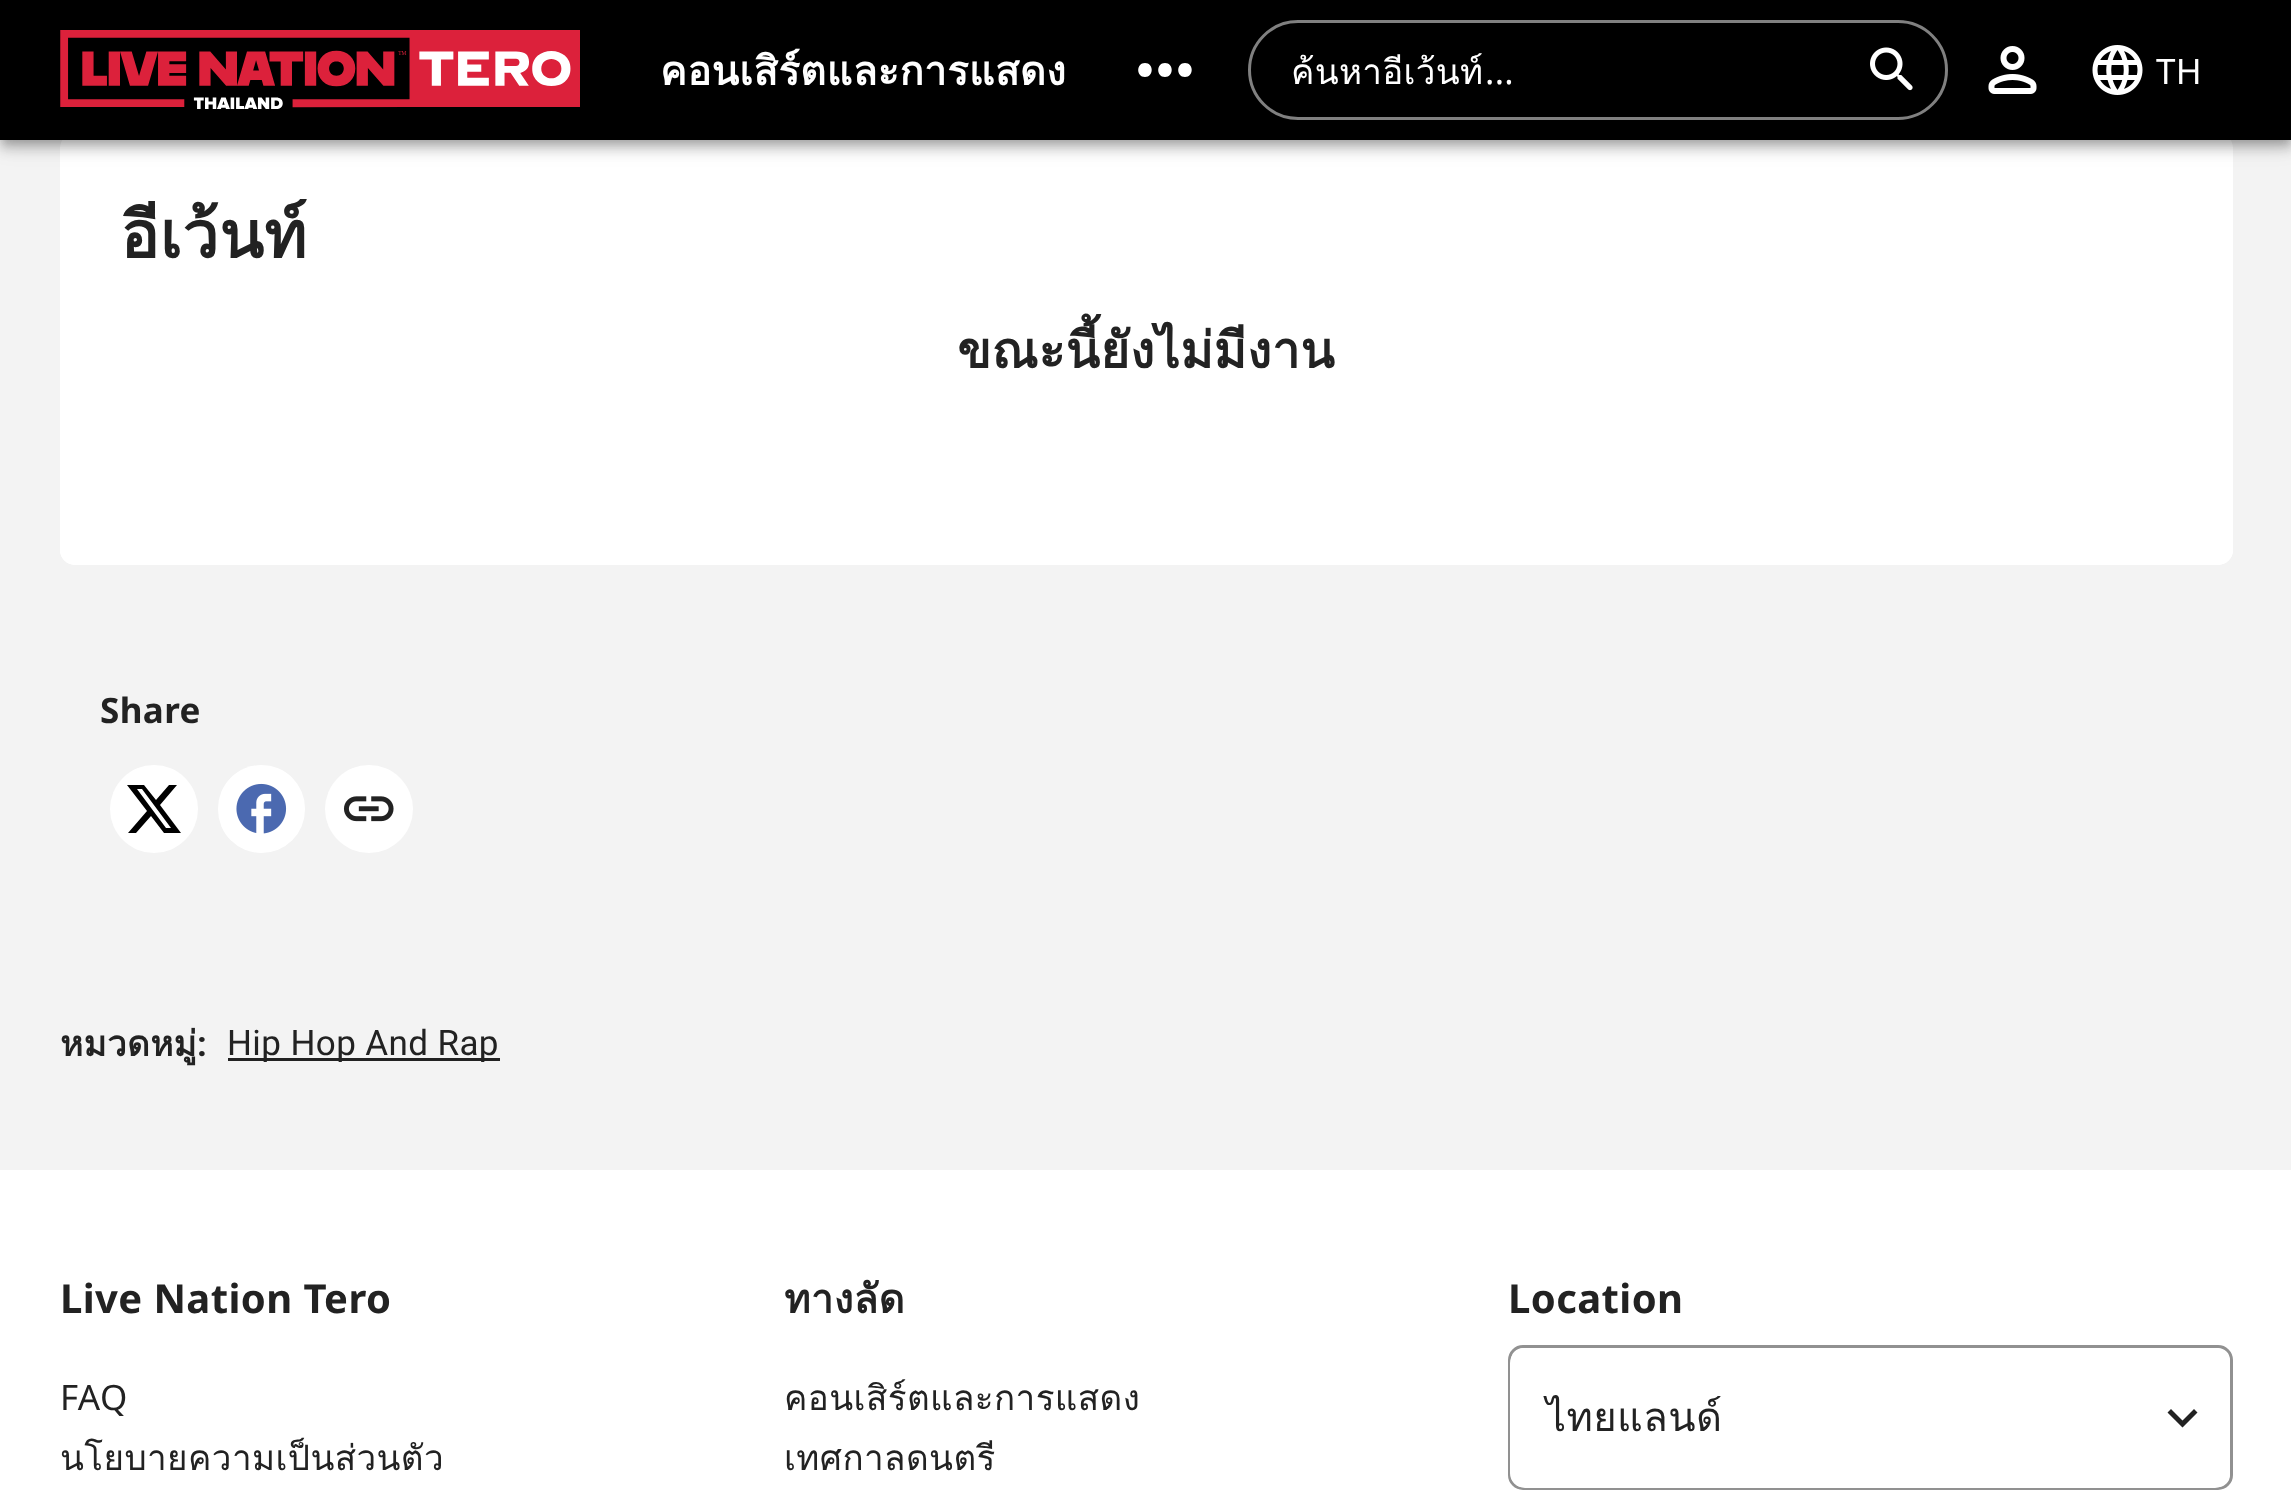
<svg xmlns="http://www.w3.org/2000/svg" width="2291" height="1500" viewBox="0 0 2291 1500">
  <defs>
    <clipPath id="clip1"><path d="M1293 45h570v50H1293z"/></clipPath>
  </defs>
  <rect width="100%" height="100%" fill="#f3f3f3"/>
  <rect x="60" y="133" width="2173" height="432" rx="15" fill="#fff"/>
  <path d="M0 3h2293v140H0z" fill="#0000001f" filter="blur(12.5px)"/>
  <path d="M0 10h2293v140H0z" fill="#00000024" filter="blur(6px)"/>
  <path d="M3 8h2287v135H3z" fill="#00000033" filter="blur(5px)"/>
  <path d="M0 0h2291v140H0z" fill="#000"/>
  <image x="60" y="30" width="520" height="79" href="img/1.png"/>
  <path d="M1145 63C1136 63 1136 77 1145 77C1154 77 1154 63 1145 63M1185 63C1176 63 1176 77 1185 77C1194 77 1194 63 1185 63M1165 63C1156 63 1156 77 1165 77C1174 77 1174 63 1165 63" fill="#fff"/>
  <rect x="1249.5" y="21.5" width="697" height="97" rx="48.5" fill="none" stroke="#808080" stroke-width="3"/>
  <image x="1870" y="47" width="43" height="44" href="img/2.png"/>
  <image x="1988" y="46" width="49" height="48" href="img/3.png"/>
  <image x="2092" y="45" width="51" height="50" href="img/4.png"/>
  <rect x="60" y="313" width="2173" height="252" rx="15" fill="#fff"/>
  <circle cx="154" cy="809" r="44" fill="#fff"/>
  <path d="M169 785H177L160 805L181 833H164L151 816L136 833H128L147 811L127 785H144L156 800ZM166 828H171L142 789H137Z" fill="#000"/>
  <rect x="218" y="765" width="87" height="88" rx="43.5" fill="#fff"/>
  <image x="236" y="783" width="51" height="51" href="img/5.png"/>
  <circle cx="369" cy="809" r="44" fill="#fff"/>
  <image x="343" y="796" width="51" height="26" href="img/6.png"/>
  <path d="M228 1058h272v3H228z" fill="#222"/>
  <path d="M0 1170h2291v330H0z" fill="#fff"/>
  <rect x="1509.5" y="1346.5" width="722" height="142" rx="13.5" fill="none" stroke="#919191" stroke-width="3"/>
  <rect x="1510" y="1348" width="720" height="140" rx="15" fill="#fff"/>
  <path d="M2171 1409L2182.5 1420.5L2194 1409L2197.5 1412.5L2182.5 1427.5L2167.5 1412.5Z" fill="#222"/>
  <text x="660" y="85" font-family="Loma" font-size="40" font-weight="bold" letter-spacing="0.4" fill="#fff">คอนเสิร์ตและการแสดง</text>
  <g clip-path="url(#clip1)">
    <text x="1291" y="84" font-family="Loma" font-size="35" letter-spacing="0.3" fill="#fff">ค้นหาอีเว้นท์</text>
  </g>
  <g font-family="Noto Sans" font-size="35" letter-spacing="0.3" fill="#fff">
    <text x="1485" y="84">...</text>
    <text x="2156" y="84">TH</text>
  </g>
  <text x="120" y="258" font-family="Loma" font-size="65" font-weight="bold" letter-spacing="0.4" fill="#222">อีเว้นท์</text>
  <text x="957" y="368" font-family="Loma" font-size="50" font-weight="bold" letter-spacing="0.4" fill="#222">ขณะนี้ยังไม่มีงาน</text>
  <text x="100" y="723" font-family="Noto Sans" font-size="35" font-weight="bold" letter-spacing="0.4" fill="#222">Share</text>
  <text x="60" y="1056" font-family="Loma" font-size="35" font-weight="bold" letter-spacing="0.4" fill="#222">หมวดหมู่</text>
  <text x="197" y="1056" font-family="Roboto" font-size="35" font-weight="bold" letter-spacing="0.4" fill="#222">:</text>
  <text x="227" y="1055" font-family="Roboto" font-size="35" letter-spacing="0.4" fill="#222">Hip Hop And Rap</text>
  <text x="60" y="1313" font-family="Noto Sans" font-size="40" font-weight="bold" letter-spacing="0.4" fill="#222">Live Nation Tero</text>
  <text x="60" y="1410" font-family="Noto Sans" font-size="35" letter-spacing="0.4" fill="#222">FAQ</text>
  <text x="60" y="1470" font-family="Loma" font-size="35" letter-spacing="0.4" fill="#222">นโยบายความเป็นส่วนตัว</text>
  <text x="784" y="1313" font-family="Loma" font-size="40" font-weight="bold" letter-spacing="0.4" fill="#222">ทางลัด</text>
  <g font-family="Loma" font-size="35" letter-spacing="0.4" fill="#222">
    <text x="784" y="1410">คอนเสิร์ตและการแสดง</text>
    <text x="784" y="1470">เทศกาลดนตรี</text>
  </g>
  <text x="1508" y="1313" font-family="Noto Sans" font-size="40" font-weight="bold" letter-spacing="0.4" fill="#222">Location</text>
  <text x="1546" y="1431" font-family="Loma" font-size="40" letter-spacing="0.4" fill="#222">ไทยแลนด์</text>
</svg>
